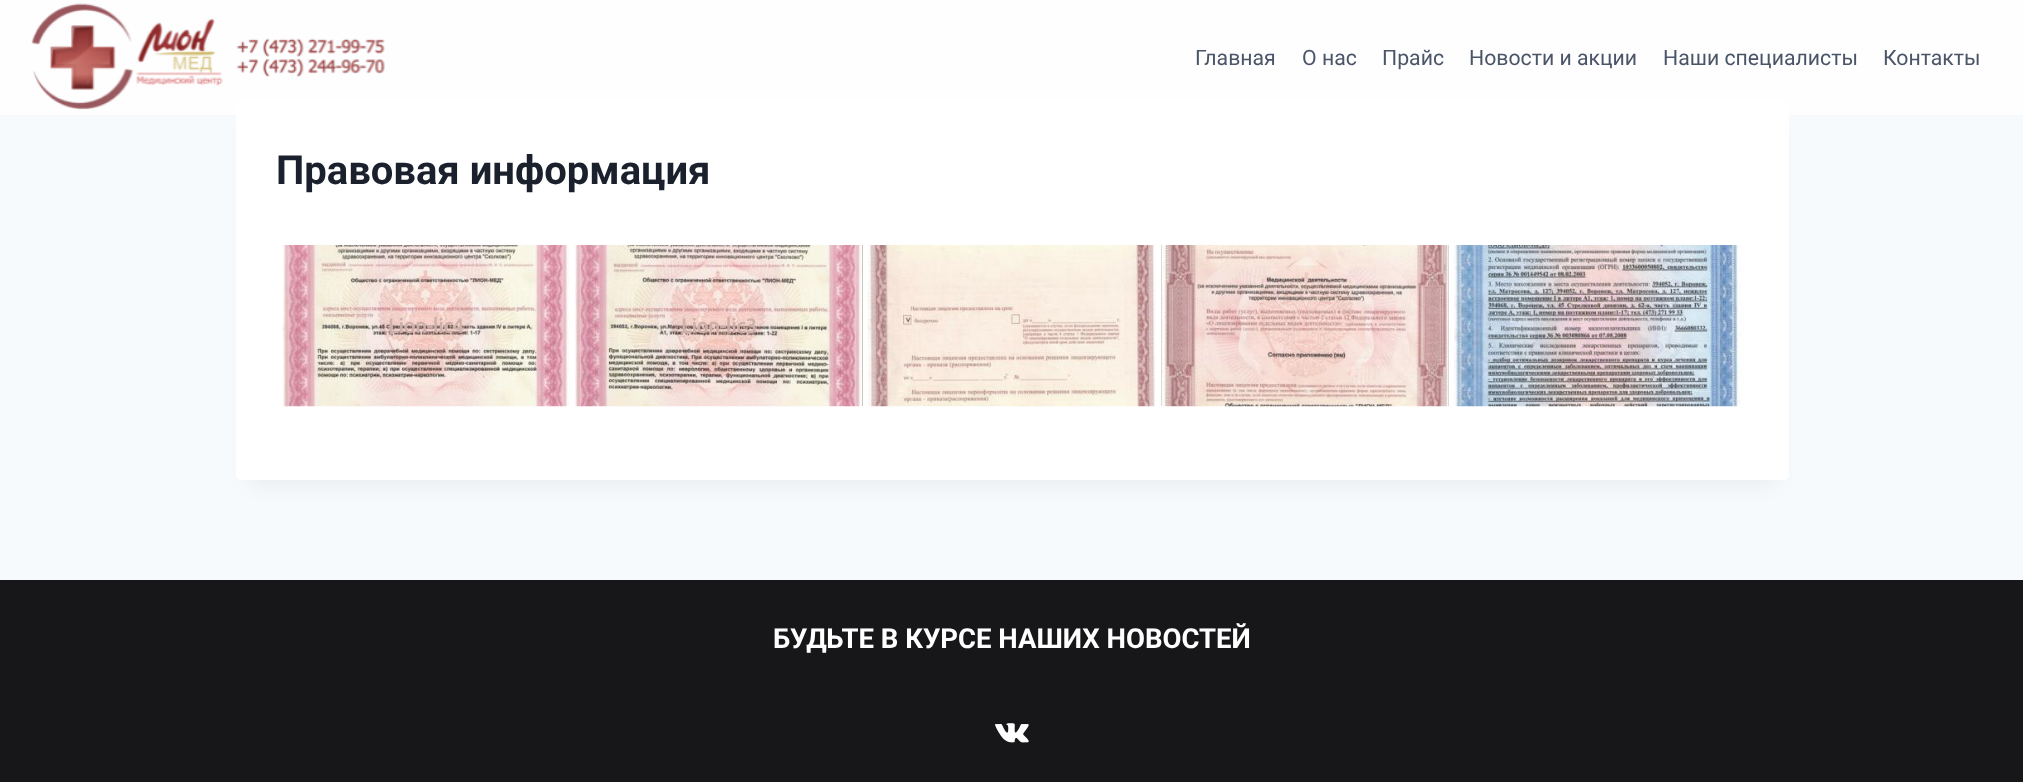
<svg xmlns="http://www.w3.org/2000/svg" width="2023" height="782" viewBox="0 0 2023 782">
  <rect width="100%" height="100%" fill="#f7fafc"/>
  <path d="M249 131h1527v355H249z" fill="#0000000d" filter="blur(9.5px)"/>
  <rect x="236" y="100" width="1553" height="380" rx="5" fill="#fff"/>
  <path d="M0 0h2023v115H0z" fill="#ffffffcc"/>
  <image x="31" y="3" width="354" height="107" href="img/1.png"/>
  <image x="282" y="245" width="288" height="162" href="img/2.png"/>
  <path d="M862 245h1v161H862z" fill="#b3b3b3"/>
  <image x="575" y="245" width="288" height="162" href="img/3.png"/>
  <image x="867" y="245" width="289" height="162" href="img/4.png"/>
  <path d="M1161 245h288v161H1161z" fill="#b3b3b3"/>
  <image x="1161" y="245" width="288" height="162" href="img/5.png"/>
  <image x="1454" y="245" width="287" height="162" href="img/6.png"/>
  <path d="M0 580h2023v202H0z" fill="#171719"/>
  <image x="995" y="723" width="34" height="20" href="img/7.png"/>
  <g font-family="Roboto" font-size="21.25" fill="#4a5568">
    <text x="1195" y="65">Главная</text>
    <text x="1302" y="65">О нас</text>
    <text x="1382" y="65">Прайс</text>
    <text x="1469" y="65">Новости и акции</text>
    <text x="1663" y="65">Наши специалисты</text>
    <text x="1883" y="65">Контакты</text>
  </g>
  <text x="276" y="184" font-family="Roboto" font-size="40" font-weight="bold" fill="#1a202c">Правовая информация</text>
  <g font-family="Ubuntu" font-size="20" font-weight="bold" fill="#cdb0a9">
    <text x="388" y="333">Lion-lic4</text>
    <text x="681" y="333">Lion-lic3</text>
  </g>
  <text x="773" y="648" font-family="Roboto" font-size="27.5" font-weight="bold" fill="#fff">БУДЬТЕ В КУРСЕ НАШИХ НОВОСТЕЙ</text>
</svg>
